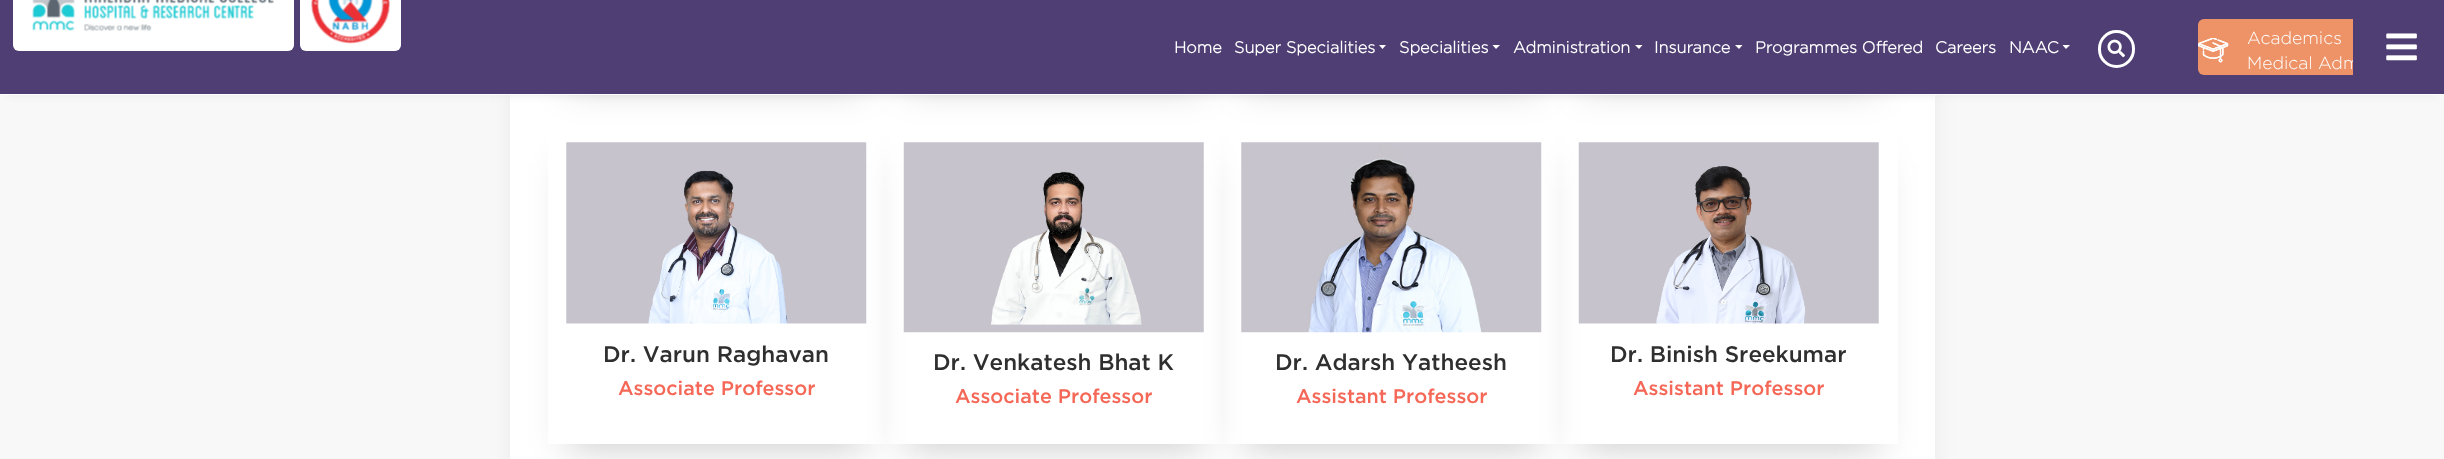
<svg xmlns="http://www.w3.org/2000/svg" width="2444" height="459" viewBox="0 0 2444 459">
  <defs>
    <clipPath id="clip1"><path d="M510 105H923V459H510ZM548 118H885V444H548Z" clip-rule="evenodd"/></clipPath>
    <clipPath id="clip2"><path d="M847 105H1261V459H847ZM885 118H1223V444H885Z" clip-rule="evenodd"/></clipPath>
    <clipPath id="clip3"><path d="M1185 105H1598V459H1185ZM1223 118H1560V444H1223Z" clip-rule="evenodd"/></clipPath>
    <clipPath id="clip4"><path d="M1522 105H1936V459H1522ZM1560 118H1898V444H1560Z" clip-rule="evenodd"/></clipPath>
  </defs>
  <rect width="100%" height="100%" fill="#f8f8f8"/>
  <path d="M530 -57h1385v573H530z" fill="#09091033" filter="blur(19px)"/>
  <path d="M510 95h1425v364H510z" fill="#fff"/>
  <path d="M8 15h2430v80H8z" fill="#e9e9e9" filter="blur(4px)"/>
  <path d="M568 -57h297v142H568z" fill="#09091033" filter="blur(19px)"/>
  <path d="M905 -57h298v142H905z" fill="#09091033" filter="blur(19px)"/>
  <path d="M1243 -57h297v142H1243z" fill="#09091033" filter="blur(19px)"/>
  <path d="M1580 -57h298v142H1580z" fill="#09091033" filter="blur(19px)"/>
  <path d="M0 0h2353v94H0z" fill="#4e3e73"/>
  <path d="M0 94h2444v1H0z" fill="#fff"/>
  <rect x="13" y="-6" width="281" height="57" rx="6" fill="#fff"/>
  <image x="32" y="0" width="242" height="31" href="img/1.png"/>
  <rect x="300" y="-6" width="101" height="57" rx="6" fill="#fff"/>
  <image x="311" y="0" width="79" height="44" href="img/2.png"/>
  <path d="M1379 45H1386L1382.5 49Z" fill="#fff"/>
  <path d="M1492.5 45H1500L1496 49Z" fill="#fff"/>
  <path d="M1635 45H1642.5L1639 49Z" fill="#fff"/>
  <path d="M1735 45H1742.5L1739 49Z" fill="#fff"/>
  <path d="M2062.5 45H2070L2066 49Z" fill="#fff"/>
  <rect x="2099.5" y="31.5" width="34" height="35" rx="17" fill="none" stroke="#fff" stroke-width="3"/>
  <image x="2107" y="39" width="18" height="19" href="img/3.png"/>
  <rect x="2198" y="19" width="228" height="56" rx="6" fill="#ed9367"/>
  <image x="2198" y="38" width="31" height="25" href="img/4.png"/>
  <image x="2198" y="38" width="31" height="25" href="img/5.png"/>
  <g clip-path="url(#clip1)">
    <path d="M568 163h297v286H568z" fill="#09091033" filter="blur(19px)"/>
  </g>
  <image x="566" y="142" width="301" height="182" href="img/7.png"/>
  <g clip-path="url(#clip2)">
    <path d="M905 163h298v286H905z" fill="#09091033" filter="blur(19px)"/>
  </g>
  <image x="903" y="142" width="301" height="191" href="img/8.png"/>
  <g clip-path="url(#clip3)">
    <path d="M1243 163h297v286H1243z" fill="#09091033" filter="blur(19px)"/>
  </g>
  <image x="1241" y="142" width="301" height="191" href="img/9.png"/>
  <g clip-path="url(#clip4)">
    <path d="M1580 163h298v286H1580z" fill="#09091033" filter="blur(19px)"/>
  </g>
  <image x="1578" y="142" width="301" height="182" href="img/10.png"/>
  <g font-family="Gotham" font-size="16.25" font-weight="bold" fill="#fff">
    <text x="1174" y="53">Home</text>
    <text x="1234" y="53">Super Specialities</text>
    <text x="1399" y="53">Specialities</text>
    <text x="1513" y="53">Administration</text>
    <text x="1654" y="53">Insurance</text>
    <text x="1755" y="53">Programmes Offered</text>
    <text x="1935" y="53">Careers</text>
    <text x="2009" y="53">NAAC</text>
  </g>
  <g font-family="Gotham" font-size="17.5" font-weight="300" fill="#fff">
    <text x="2247" y="44">Academics</text>
    <text x="2247" y="69">Medical Adm</text>
  </g>
  <path d="M2353 0h91v94H2353z" fill="#4e3e73"/>
  <image x="2386" y="33" width="31" height="28" href="img/6.png"/>
  <text x="603" y="362" font-family="Gotham" font-size="22.5" font-weight="500" fill="#2f2f2f">Dr. Varun Raghavan</text>
  <text x="618" y="395" font-family="Gotham" font-size="19.75" font-weight="500" fill="#f56756">Associate Professor</text>
  <text x="933" y="370" font-family="Gotham" font-size="22.5" font-weight="500" fill="#2f2f2f">Dr. Venkatesh Bhat K</text>
  <text x="955" y="403" font-family="Gotham" font-size="19.75" font-weight="500" fill="#f56756">Associate Professor</text>
  <text x="1275" y="370" font-family="Gotham" font-size="22.5" font-weight="500" fill="#2f2f2f">Dr. Adarsh Yatheesh</text>
  <text x="1296" y="403" font-family="Gotham" font-size="19.75" font-weight="500" fill="#f56756">Assistant Professor</text>
  <text x="1610" y="362" font-family="Gotham" font-size="22.5" font-weight="500" fill="#2f2f2f">Dr. Binish Sreekumar</text>
  <text x="1633" y="395" font-family="Gotham" font-size="19.75" font-weight="500" fill="#f56756">Assistant Professor</text>
</svg>
